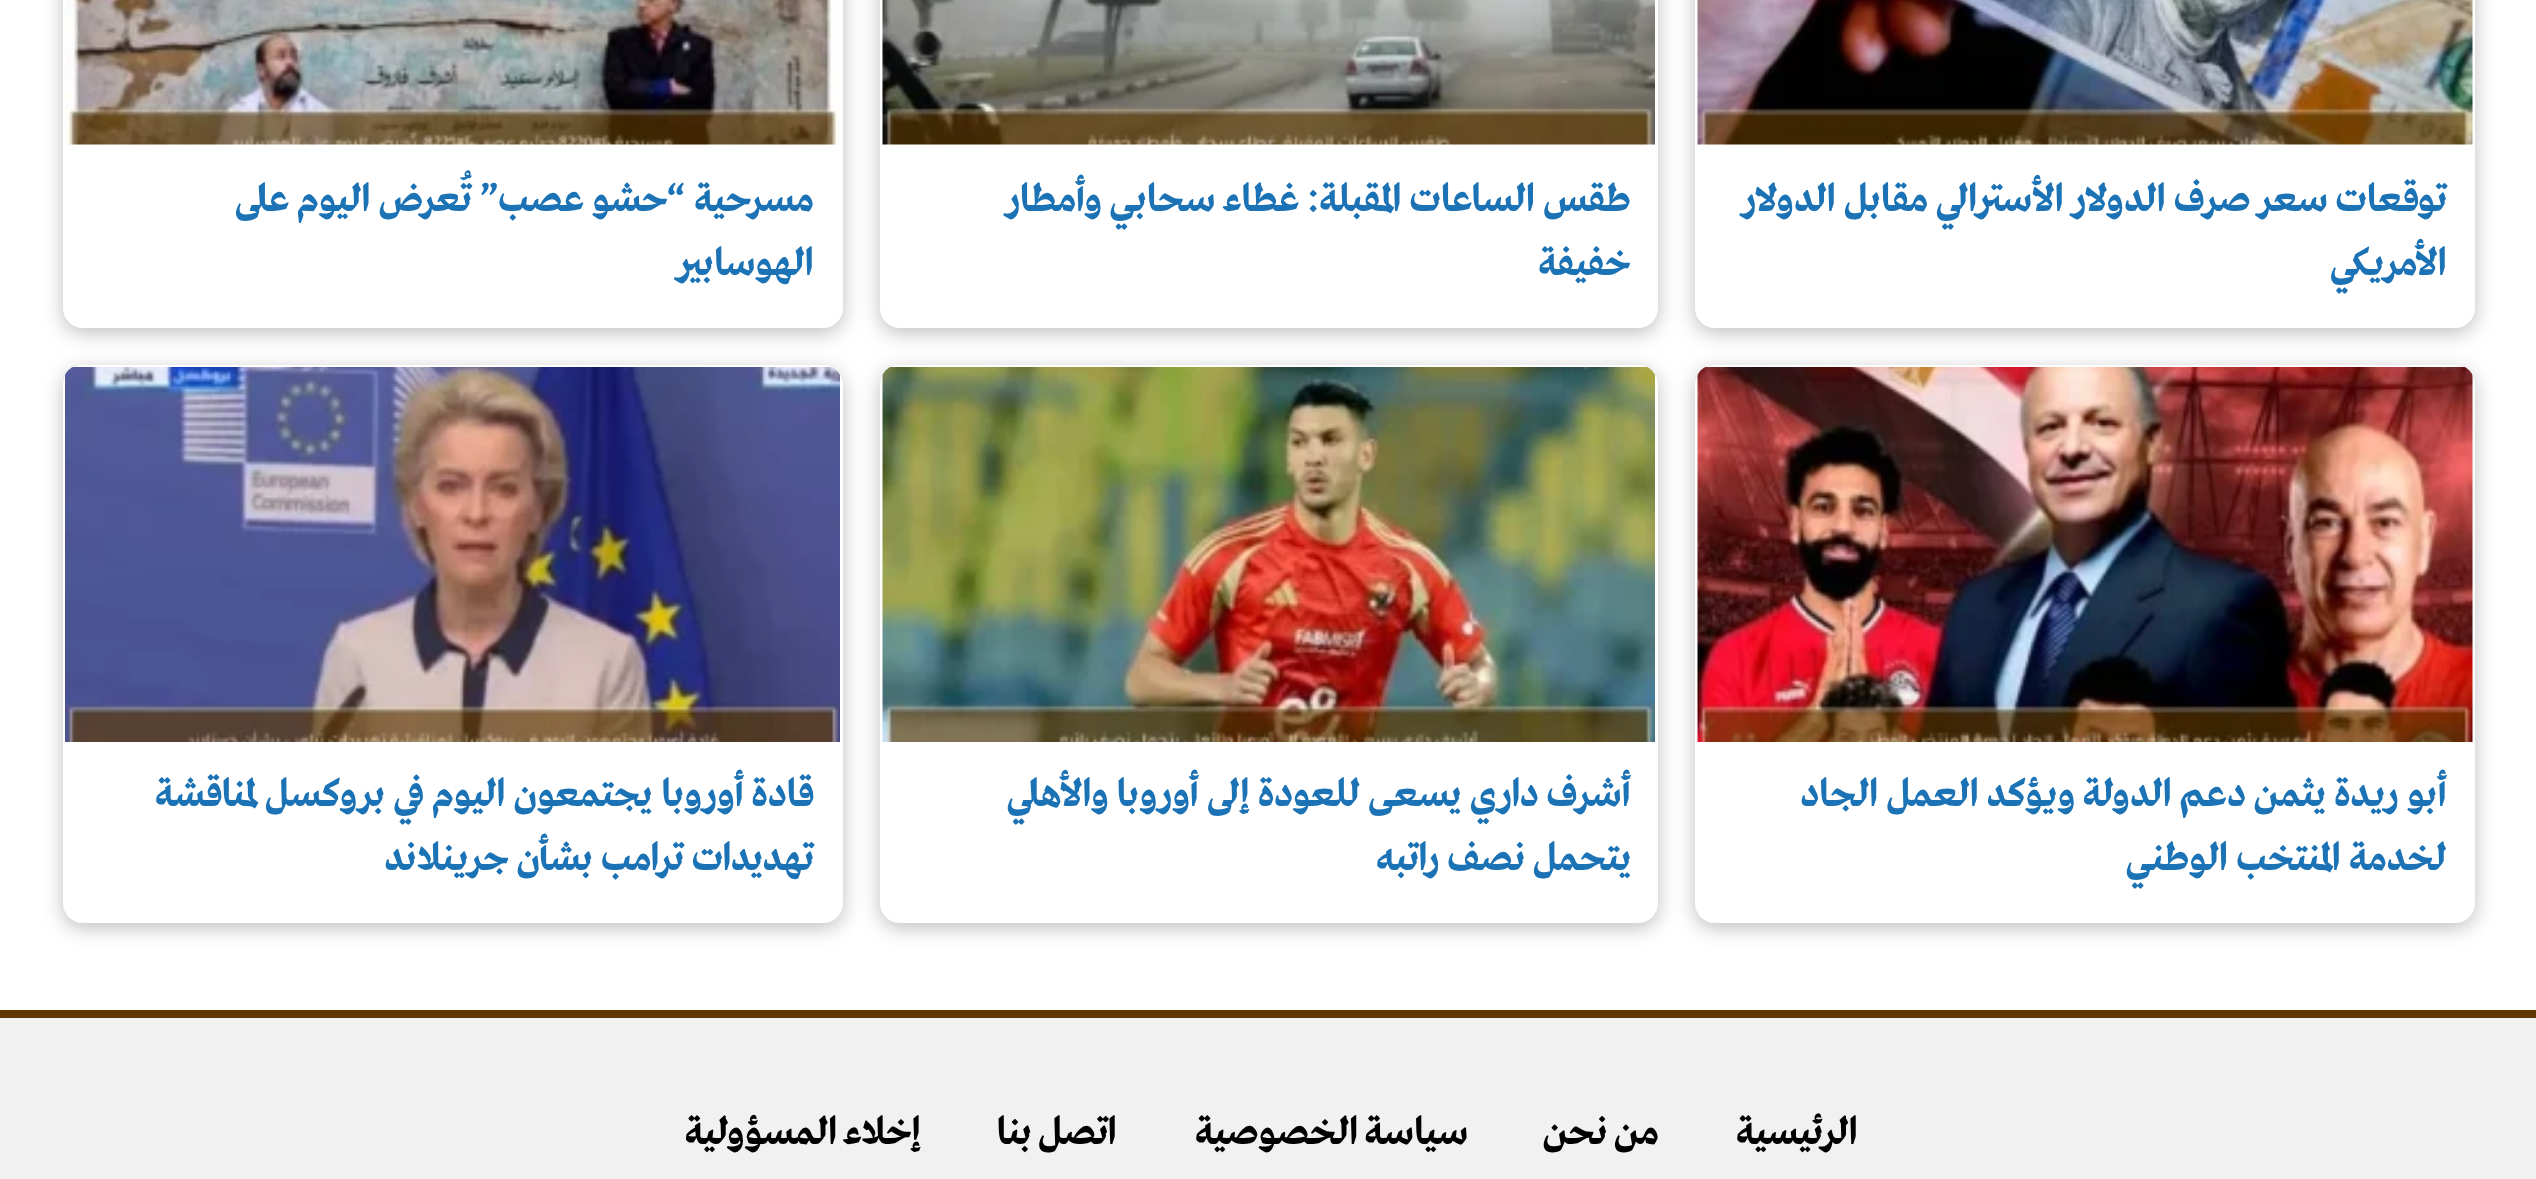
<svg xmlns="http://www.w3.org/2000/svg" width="2536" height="1179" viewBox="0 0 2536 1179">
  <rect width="100%" height="100%" fill="#fff"/>
  <rect x="1695" y="-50" width="780" height="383" rx="20" fill="#00000040" filter="blur(10px)"/>
  <rect x="1695" y="-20" width="780" height="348" rx="20" fill="#fff"/>
  <image x="1697" y="0" width="776" height="145" href="img/1.png"/>
  <rect x="880" y="-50" width="778" height="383" rx="20" fill="#00000040" filter="blur(10px)"/>
  <rect x="880" y="-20" width="778" height="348" rx="20" fill="#fff"/>
  <image x="882" y="0" width="773" height="145" href="img/2.png"/>
  <rect x="63" y="-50" width="780" height="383" rx="20" fill="#00000040" filter="blur(10px)"/>
  <rect x="63" y="-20" width="780" height="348" rx="20" fill="#fff"/>
  <image x="65" y="0" width="775" height="145" href="img/3.png"/>
  <rect x="1695" y="370" width="780" height="558" rx="20" fill="#00000040" filter="blur(10px)"/>
  <rect x="1695" y="365" width="780" height="558" rx="20" fill="#fff"/>
  <image x="1697" y="367" width="776" height="375" href="img/4.png"/>
  <rect x="880" y="370" width="778" height="558" rx="20" fill="#00000040" filter="blur(10px)"/>
  <rect x="880" y="365" width="778" height="558" rx="20" fill="#fff"/>
  <image x="882" y="367" width="773" height="375" href="img/5.png"/>
  <rect x="63" y="370" width="780" height="558" rx="20" fill="#00000040" filter="blur(10px)"/>
  <rect x="63" y="365" width="780" height="558" rx="20" fill="#fff"/>
  <image x="65" y="367" width="775" height="375" href="img/6.png"/>
  <path d="M0 1018h2536v161H0z" fill="#f1f1f1"/>
  <path d="M0 1010h2536v8H0z" fill="#5e3800"/>
  <g font-family="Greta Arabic" font-size="40" font-weight="bold" direction="rtl" fill="#1b72b5">
    <text x="2447" y="211">توقعات سعر صرف الدولار الأسترالي مقابل الدولار</text>
    <text x="2447" y="275">الأمريكي</text>
    <text x="1631" y="211">طقس الساعات المقبلة: غطاء سحابي وأمطار</text>
    <text x="1631" y="275">خفيفة</text>
    <text x="814" y="211">مسرحية “حشو عصب” تُعرض اليوم على</text>
    <text x="814" y="275">الهوسابير</text>
    <text x="2447" y="806">أبو ريدة يثمن دعم الدولة ويؤكد العمل الجاد</text>
    <text x="2447" y="870">لخدمة المنتخب الوطني</text>
    <text x="1631" y="806">أشرف داري يسعى للعودة إلى أوروبا والأهلي</text>
    <text x="1631" y="870">يتحمل نصف راتبه</text>
    <text x="814" y="806">قادة أوروبا يجتمعون اليوم في بروكسل لمناقشة</text>
    <text x="814" y="870">تهديدات ترامب بشأن جرينلاند</text>
  </g>
  <g font-family="Greta Arabic" font-size="40" font-weight="bold" letter-spacing="0.25" direction="rtl" fill="#000">
    <text x="1858" y="1144">الرئيسية</text>
    <text x="1659" y="1144" word-spacing="-1">من نحن</text>
    <text x="1468" y="1144" word-spacing="-2">سياسة الخصوصية</text>
    <text x="1117" y="1144" word-spacing="-2">اتصل بنا</text>
    <text x="921" y="1144" word-spacing="-2">إخلاء المسؤولية</text>
  </g>
</svg>
